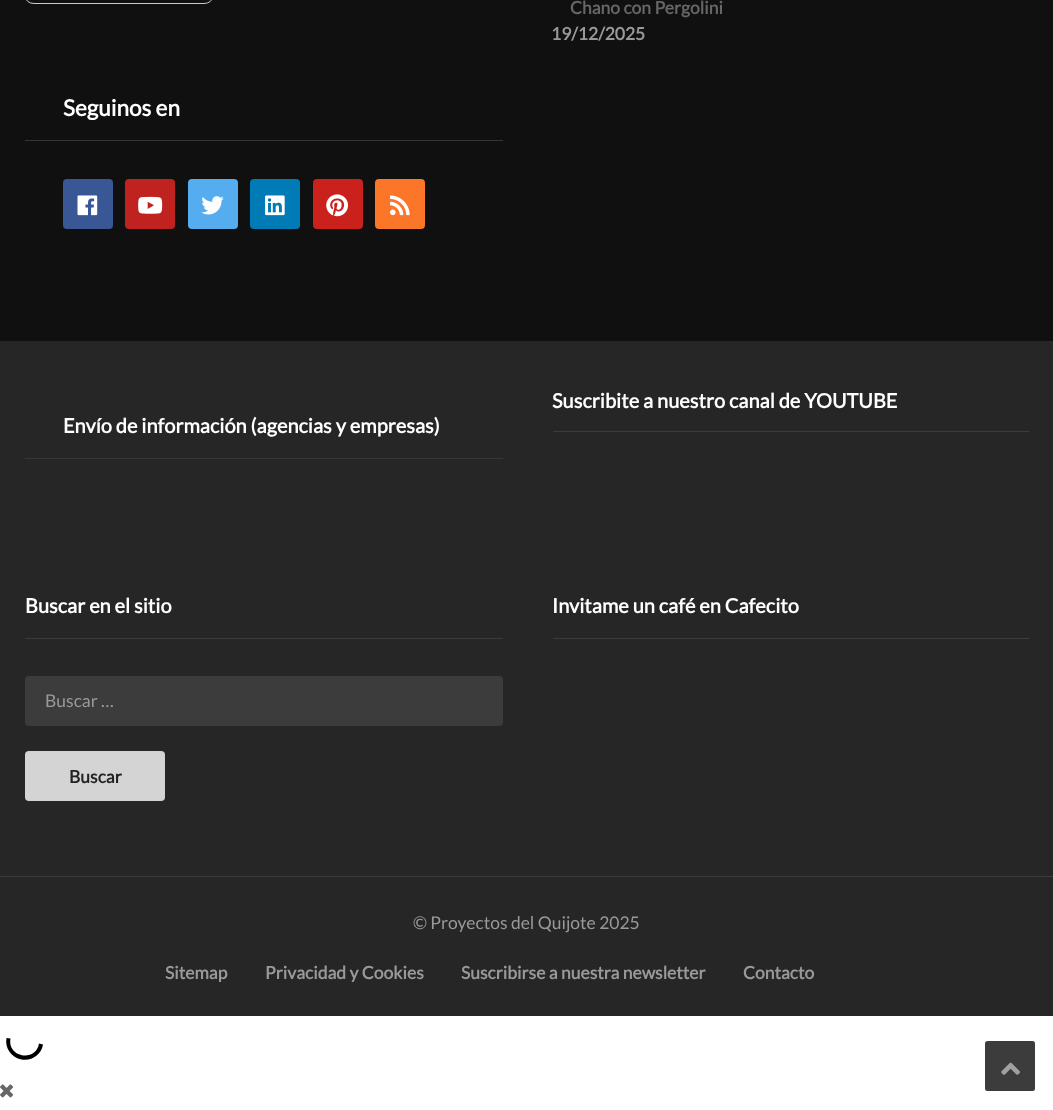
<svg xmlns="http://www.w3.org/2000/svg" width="1053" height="1110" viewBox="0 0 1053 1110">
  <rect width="100%" height="100%" fill="#fff"/>
  <path d="M0 0h1053v341H0z" fill="#101010"/>
  <rect x="25.5" y="-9.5" width="187" height="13" rx="8.5" fill="none" stroke="#ccc"/>
  <path d="M25 140h478v1H25z" fill="#363636"/>
  <rect x="63" y="179" width="50" height="50" rx="4" fill="#3a5795"/>
  <image x="77" y="195" width="21" height="21" href="img/1.png"/>
  <rect x="125" y="179" width="50" height="50" rx="4" fill="#bf221f"/>
  <image x="138" y="196" width="25" height="18" href="img/2.png"/>
  <rect x="188" y="179" width="50" height="50" rx="4" fill="#55acee"/>
  <image x="201" y="196" width="23" height="19" href="img/3.png"/>
  <rect x="250" y="179" width="50" height="50" rx="4" fill="#007bb6"/>
  <image x="265" y="195" width="20" height="21" href="img/4.png"/>
  <rect x="313" y="179" width="50" height="50" rx="4" fill="#cb211d"/>
  <image x="326" y="194" width="23" height="23" href="img/5.png"/>
  <rect x="375" y="179" width="50" height="50" rx="4" fill="#fb7629"/>
  <image x="390" y="195" width="20" height="21" href="img/6.png"/>
  <path d="M0 341h1053v675H0z" fill="#262626"/>
  <path d="M553 431h476v1H553z" fill="#3c3c3c"/>
  <path d="M25 458h478v1H25z" fill="#363636"/>
  <path d="M25 638h478v1H25z" fill="#3c3c3c"/>
  <rect x="25" y="676" width="478" height="50" rx="4" fill="#3c3c3c"/>
  <rect x="25" y="751" width="140" height="50" rx="4" fill="#d4d4d4"/>
  <path d="M553 638h476v1H553z" fill="#3c3c3c"/>
  <path d="M0 876h1053v1H0z" fill="#3c3c3c"/>
  <path d="M6.5 1038C4.5 1048 11.5 1057.5 21.5 1059.5C31.5 1061.5 41.5 1054.5 43 1044.5L39 1043.5C36 1062.5 7 1057.5 10.5 1038.5Z" fill="#000"/>
  <image x="0" y="1084" width="14" height="14" href="img/7.png"/>
  <rect x="985" y="1041" width="50" height="50" rx="2.5" fill="#3c3c3c"/>
  <image x="1001" y="1062" width="19" height="13" href="img/8.png"/>
  <text x="570" y="14" font-family="Lato" font-size="17.5" font-weight="bold" fill="#666">Chano con Pergolini</text>
  <text x="551" y="40" font-family="Lato" font-size="17.5" font-weight="bold" fill="#999">19/12/2025</text>
  <text x="63" y="116" font-family="Lato" font-size="22.5" font-weight="bold" fill="#fff">Seguinos en</text>
  <g font-family="Lato" font-size="20" font-weight="bold" fill="#fff">
    <text x="552" y="408">Suscribite a nuestro canal de YOUTUBE</text>
    <text x="63" y="433">Envío de información (agencias y empresas)</text>
    <text x="25" y="613">Buscar en el sitio</text>
  </g>
  <text x="45" y="707" font-family="Lato" font-size="17.5" fill="#999">Buscar …</text>
  <text x="69" y="783" font-family="Lato" font-size="17.5" font-weight="bold" fill="#222">Buscar</text>
  <text x="552" y="613" font-family="Lato" font-size="20" font-weight="bold" fill="#fff">Invitame un café en Cafecito</text>
  <text x="413" y="929" font-family="Lato" font-size="17.5" fill="#999">© Proyectos del Quijote 2025</text>
  <g font-family="Lato" font-size="17.5" font-weight="bold" fill="#999">
    <text x="165" y="979">Sitemap</text>
    <text x="265" y="979">Privacidad y Cookies</text>
    <text x="461" y="979">Suscribirse a nuestra newsletter</text>
    <text x="743" y="979">Contacto</text>
  </g>
</svg>
